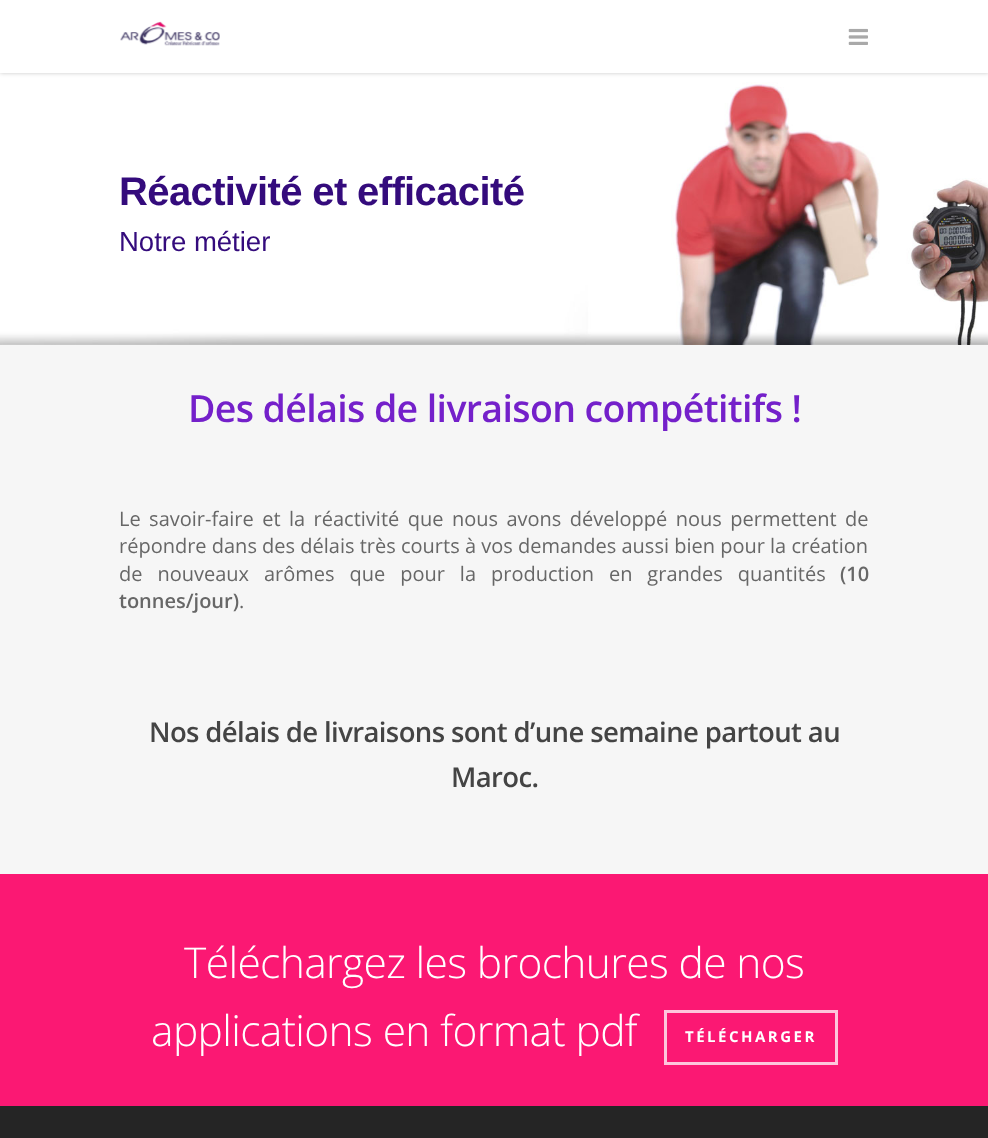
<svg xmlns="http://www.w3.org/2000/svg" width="988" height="1138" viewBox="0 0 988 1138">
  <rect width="100%" height="100%" fill="#fff"/>
  <image x="0" y="73" width="988" height="272" href="img/3.png"/>
  <path d="M0 0h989v73H0z" fill="#00000038" filter="blur(2px)"/>
  <path d="M0 0h988v73H0z" fill="#fff"/>
  <image x="120" y="21" width="100" height="25" href="img/1.png"/>
  <image x="848" y="28" width="20" height="17" href="img/2.png"/>
  <path d="M0 345h988v529H0z" fill="#f6f6f6"/>
  <path d="M0 874h988v232H0z" fill="#fb1873"/>
  <path d="M665.5 1011.5h171v52H665.5z" fill="none" stroke="#fec5dc" stroke-width="3"/>
  <path d="M0 1106h988v32H0z" fill="#252525"/>
  <text x="119" y="205" font-family="Liberation Sans" font-size="40" font-weight="bold" letter-spacing="-0.62" fill="#340b7c">Réactivité et efficacité</text>
  <text x="119" y="251" font-family="Liberation Sans" font-size="27.5" fill="#340b7c">Notre métier</text>
  <text x="188" y="422" font-family="Open Sans" font-size="37.5" font-weight="600" letter-spacing="-0.62" fill="#7420ca">Des délais de livraison compétitifs !</text>
  <g font-family="Open Sans" font-size="20" fill="#676767">
    <text x="119" y="526" word-spacing="3.25">Le savoir-faire et la réactivité que nous avons développé nous permettent de</text>
    <text x="119" y="553">répondre dans des délais très courts à vos demandes aussi bien pour la création</text>
    <text x="119" y="581" word-spacing="9.75">de nouveaux arômes que pour la production en grandes quantités</text>
  </g>
  <g font-family="Open Sans" font-size="20" font-weight="600" fill="#676767">
    <text x="840" y="581">(10</text>
    <text x="119" y="608">tonnes/jour)</text>
  </g>
  <text x="239" y="608" font-family="Open Sans" font-size="20" fill="#676767">.</text>
  <g font-family="Open Sans" font-size="27.5" font-weight="600" letter-spacing="-0.62" fill="#444">
    <text x="149" y="742">Nos délais de livraisons sont d’une semaine partout au</text>
    <text x="451" y="787">Maroc.</text>
  </g>
  <g font-family="Open Sans" font-size="42.5" font-weight="300" letter-spacing="-0.62" fill="#fff">
    <text x="184" y="978">Téléchargez les brochures de nos</text>
    <text x="151" y="1046">applications en format pdf</text>
  </g>
  <text x="685" y="1042" font-family="Open Sans" font-size="15" font-weight="bold" letter-spacing="2.5" fill="#fff">TÉLÉCHARGER</text>
</svg>
